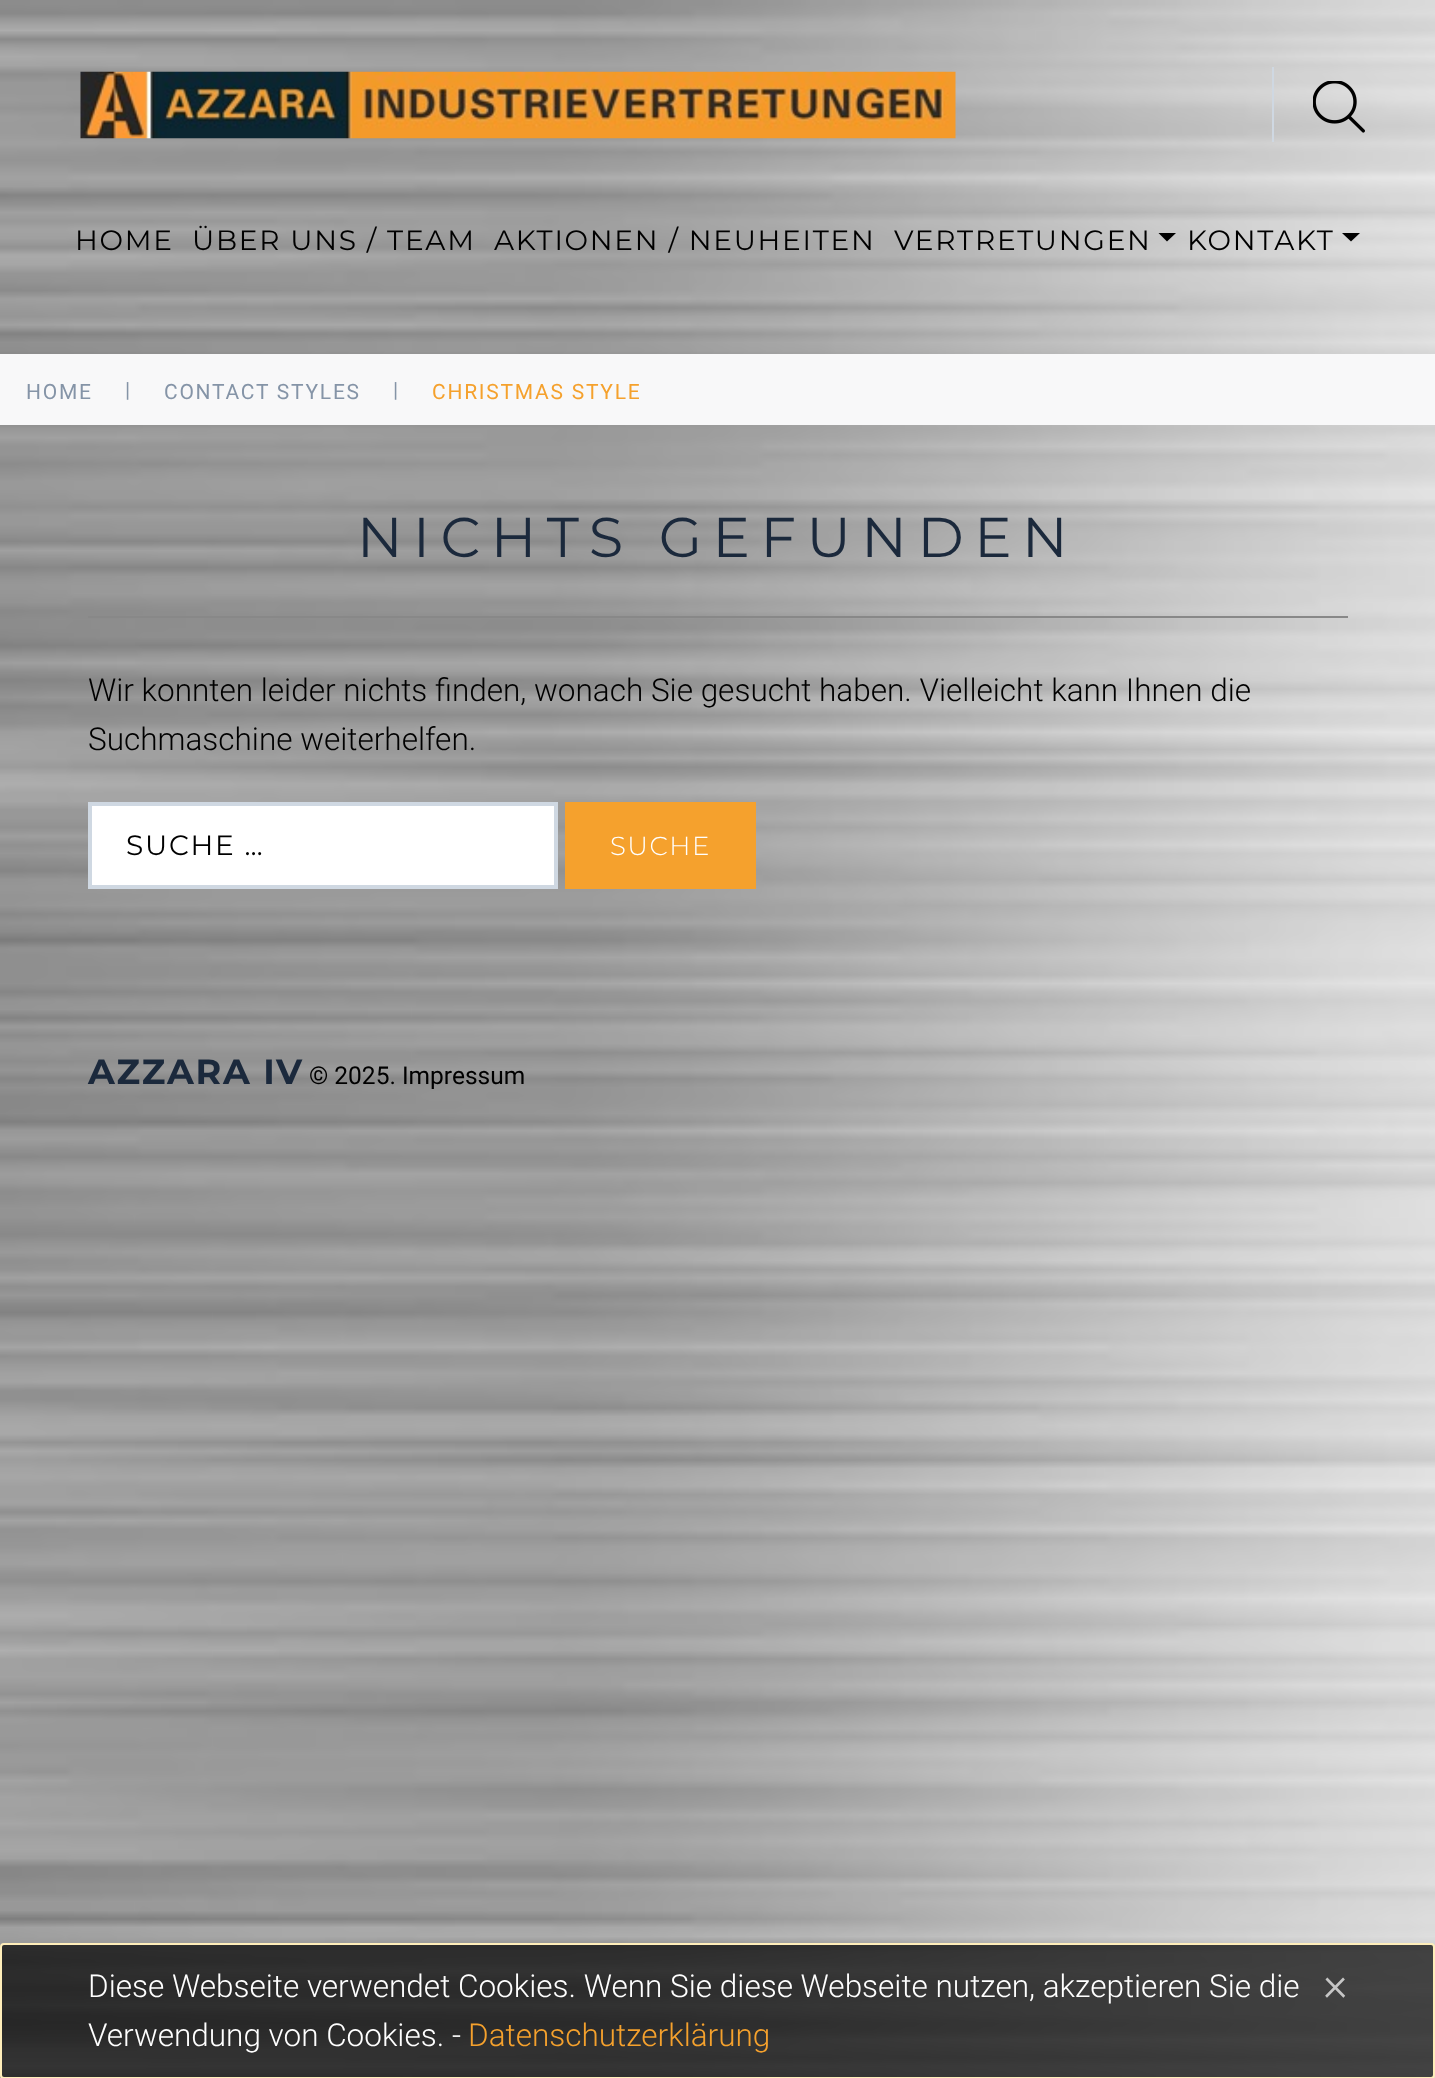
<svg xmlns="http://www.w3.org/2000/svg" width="1435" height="2078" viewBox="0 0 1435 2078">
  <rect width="100%" height="100%" fill="#fff"/>
  <image x="0" y="425" width="1435" height="1653" href="img/1.png"/>
  <image x="0" y="0" width="1435" height="354" href="img/2.png"/>
  <image x="80" y="71" width="876" height="68" href="img/3.png"/>
  <path d="M1272 67h2v75H1272z" fill="#cfd8e2"/>
  <image x="1313" y="81" width="52" height="52" href="img/4.png"/>
  <path d="M1158.5 233H1176L1167 241.5Z" fill="#000"/>
  <path d="M1342 233H1360L1351 241.5Z" fill="#000"/>
  <path d="M0 354h1435v71H0z" fill="#f8f8f9"/>
  <path d="M88 616h1260v2H88z" fill="#888"/>
  <path d="M90 804h466v83H90z" fill="#fff" stroke="#cfd8e2" stroke-width="4"/>
  <path d="M565 802h191v87H565z" fill="#f5a12d"/>
  <rect x="1" y="1944" width="1433" height="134" rx="3" fill="#000000b3" stroke="#ffeeba" stroke-width="2"/>
  <g font-family="Montserrat" font-size="28" letter-spacing="1.75" fill="#000">
    <text x="75" y="250">HOME</text>
    <text x="192" y="250">ÜBER UNS / TEAM</text>
    <text x="494" y="250">AKTIONEN / NEUHEITEN</text>
    <text x="894" y="250">VERTRETUNGEN</text>
    <text x="1187" y="250">KONTAKT</text>
  </g>
  <g font-family="Roboto" font-size="21" letter-spacing="1.75" fill="#8594a7">
    <text x="26" y="399">HOME</text>
    <text x="125" y="397">|</text>
    <text x="164" y="399">CONTACT STYLES</text>
    <text x="393" y="397">|</text>
  </g>
  <text x="432" y="399" font-family="Roboto" font-size="21" letter-spacing="1.75" fill="#f5a12d">CHRISTMAS STYLE</text>
  <text x="357" y="557" font-family="Montserrat" font-size="56" letter-spacing="10.5" fill="#1b293c">NICHTS GEFUNDEN</text>
  <g font-family="Roboto" font-size="31.5" font-weight="300" fill="#000">
    <text x="88" y="701">Wir konnten leider nichts finden, wonach Sie gesucht haben. Vielleicht kann Ihnen die</text>
    <text x="88" y="750">Suchmaschine weiterhelfen.</text>
  </g>
  <text x="126" y="855" font-family="Montserrat" font-size="28" letter-spacing="1.75" fill="#000">SUCHE …</text>
  <text x="610" y="855" font-family="Montserrat" font-size="26" font-weight="300" letter-spacing="1.5" fill="#fff">SUCHE</text>
  <text x="88" y="1084" font-family="Montserrat" font-size="35" font-weight="bold" letter-spacing="1.75" fill="#1b293c">AZZARA IV</text>
  <text x="309" y="1084" font-family="Roboto" font-size="24.5" fill="#000">© 2025. Impressum</text>
  <text x="88" y="1997" font-family="Roboto" font-size="31.5" font-weight="300" fill="#fff">Diese Webseite verwendet Cookies. Wenn Sie diese Webseite nutzen, akzeptieren Sie die</text>
  <text x="1323" y="2000" font-family="Roboto" font-size="47" font-weight="300" fill="#c6c6c6">×</text>
  <text x="88" y="2046" font-family="Roboto" font-size="31.5" font-weight="300" fill="#fff">Verwendung von Cookies. -</text>
  <text x="468" y="2046" font-family="Roboto" font-size="31.5" font-weight="300" fill="#f5a12d">Datenschutzerklärung</text>
</svg>
